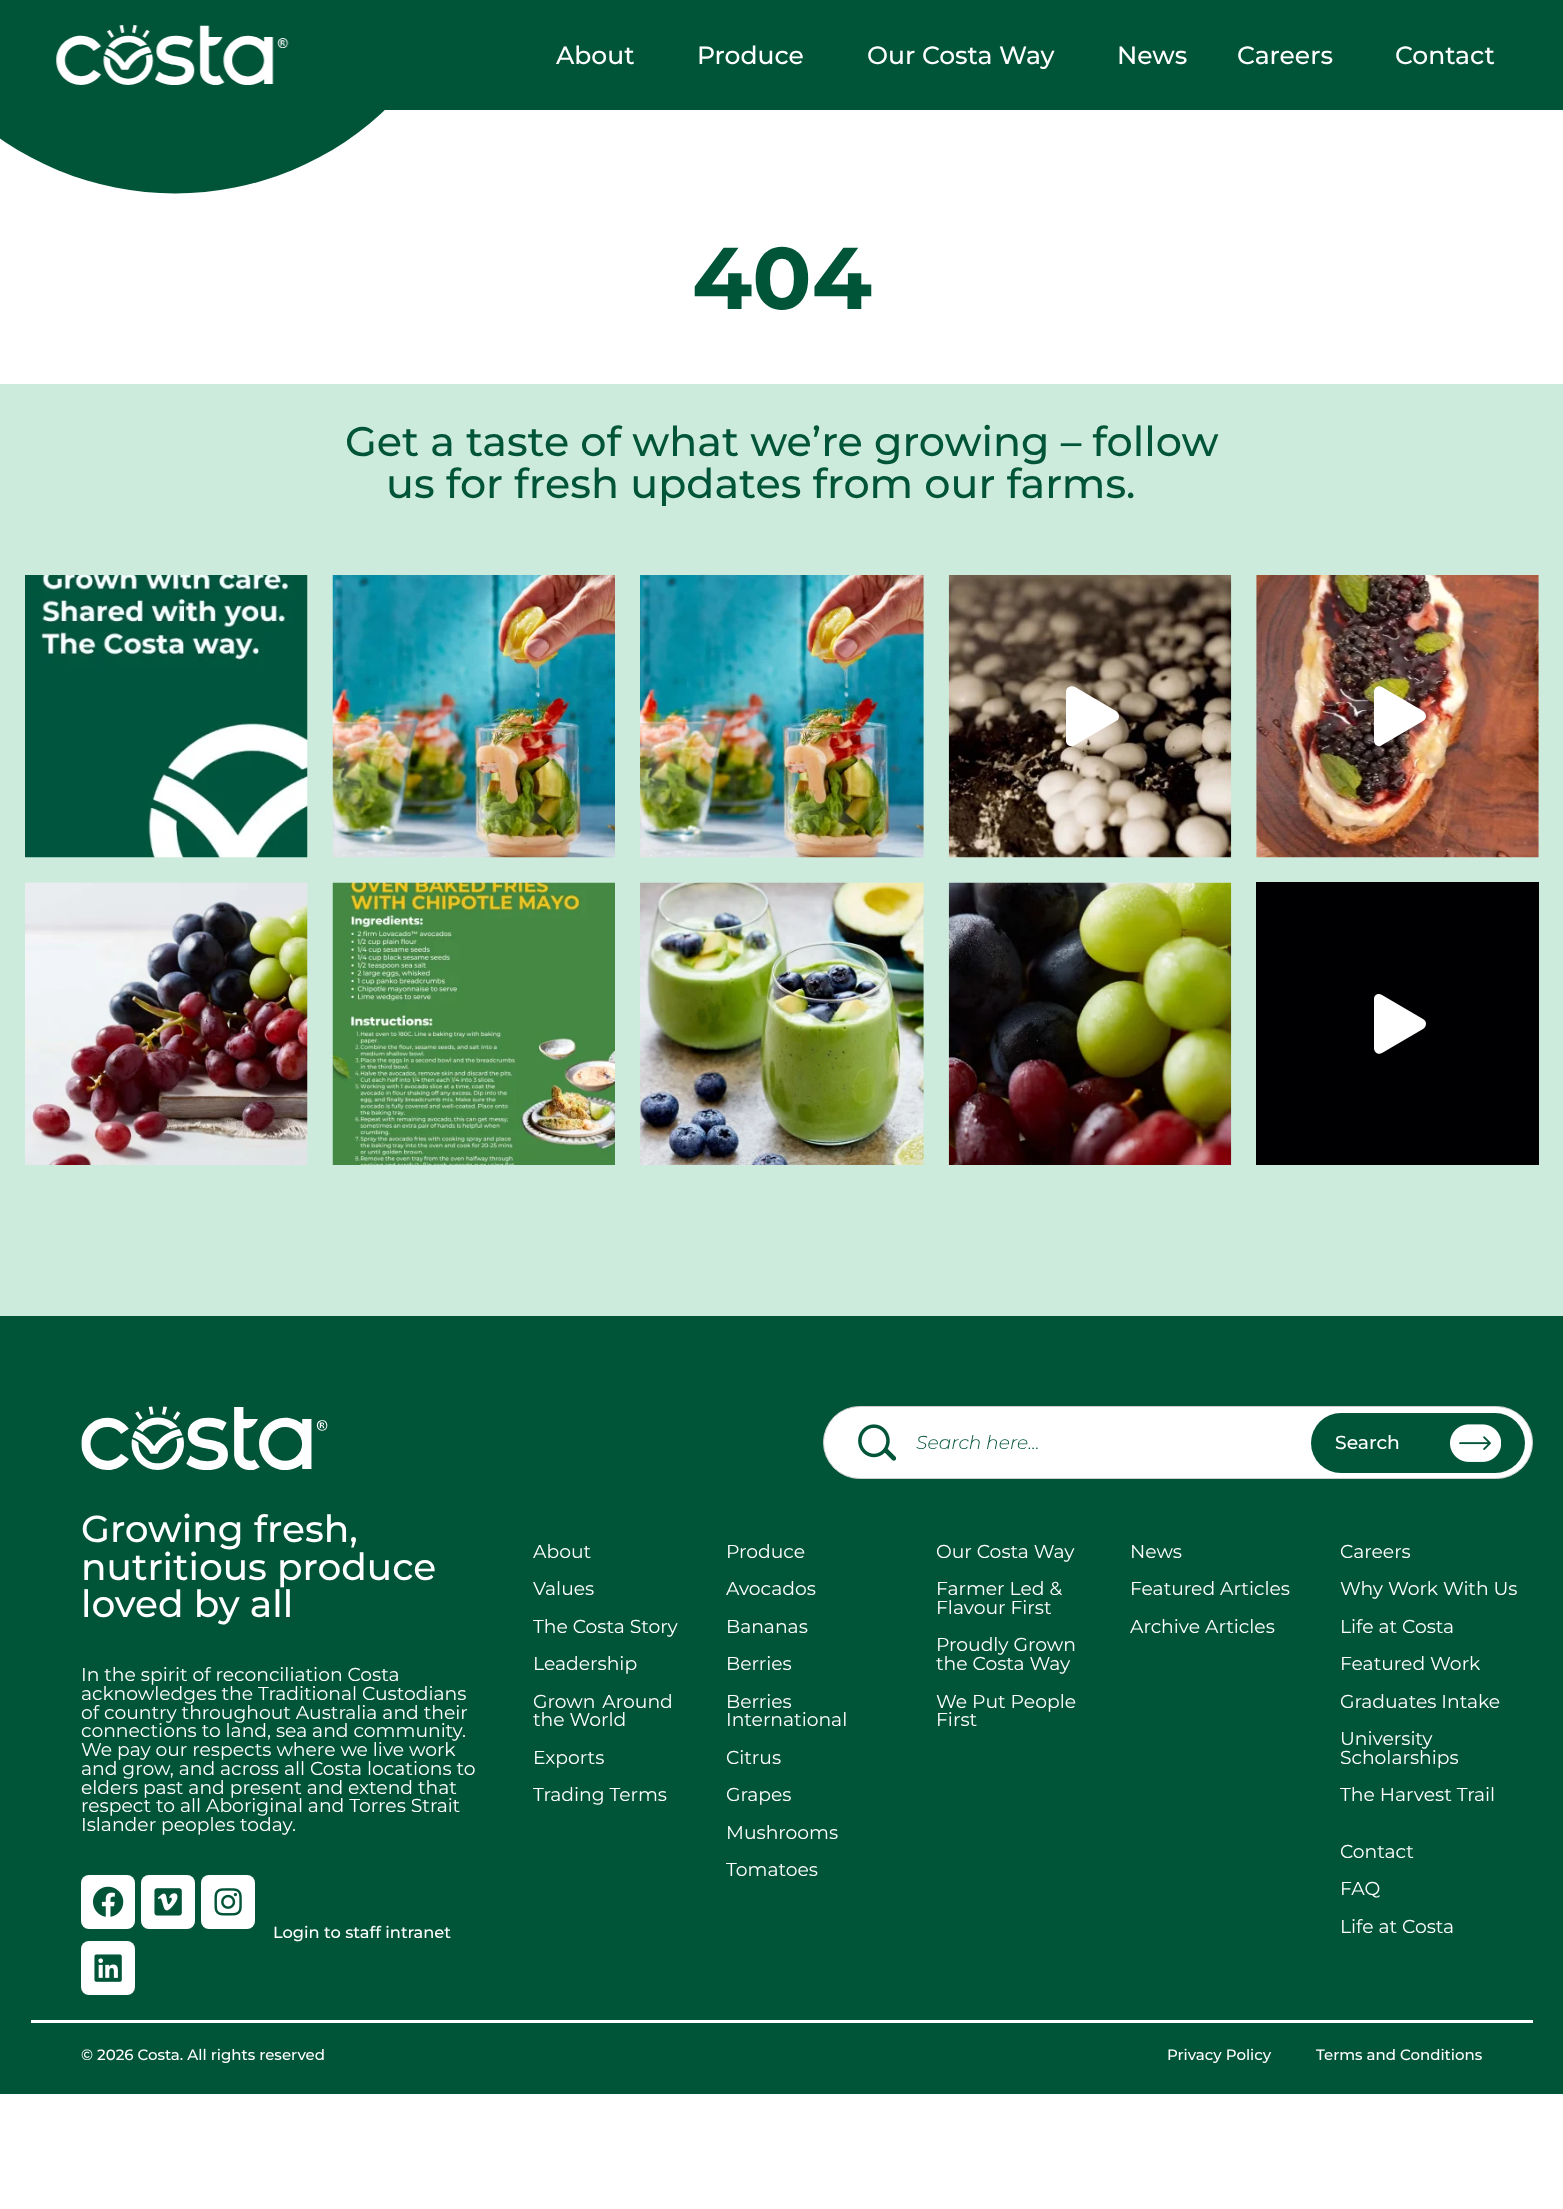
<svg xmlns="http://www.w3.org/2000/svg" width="1563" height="2209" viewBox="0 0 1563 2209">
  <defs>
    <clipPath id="clip1"><path d="M1066 686h53v60H1066z"/></clipPath>
  </defs>
  <rect width="100%" height="100%" fill="#fff"/>
  <circle cx="175" cy="-112.5" r="306" fill="#005438"/>
  <path d="M385 0h1178v110H385z" fill="#005438"/>
  <image x="56" y="25" width="233" height="60" href="img/1.png"/>
  <path d="M0 384h1563v932H0z" fill="#ccebdc"/>
  <image x="25" y="575" width="283" height="283" href="img/2.png"/>
  <image x="332" y="575" width="283" height="283" href="img/3.png"/>
  <image x="640" y="575" width="284" height="283" href="img/4.png"/>
  <image x="948" y="575" width="284" height="283" href="img/5.png"/>
  <g clip-path="url(#clip1)">
    <path d="M1116 711L1075 687C1071 685 1066 687 1066 692V741C1066 745 1071 748 1075 745L1116 721C1120 719 1120 714 1116 711Z" fill="#fff"/>
  </g>
  <image x="1256" y="575" width="283" height="283" href="img/6.png"/>
  <path d="M1423 711L1382 687C1379 685 1374 687 1374 692V741C1374 745 1379 748 1382 745L1423 721C1427 719 1427 714 1423 711Z" fill="#fff"/>
  <image x="25" y="882" width="283" height="283" href="img/7.png"/>
  <image x="332" y="882" width="283" height="283" href="img/8.png"/>
  <image x="640" y="882" width="284" height="283" href="img/9.png"/>
  <image x="948" y="882" width="284" height="283" href="img/10.png"/>
  <path d="M1256 882h283v283H1256z" fill="#000002"/>
  <path d="M1423 1019L1382 995C1379 993 1374 994 1374 999V1048C1374 1053 1379 1055 1382 1053L1423 1029C1427 1026 1427 1021 1423 1019Z" fill="#fff"/>
  <path d="M0 1316h1563v778H0z" fill="#005438"/>
  <image x="81" y="1406" width="247" height="64" href="img/11.png"/>
  <rect x="81" y="1875" width="54" height="54" rx="8" fill="#fff"/>
  <image x="93" y="1886" width="31" height="31" href="img/12.png"/>
  <rect x="141" y="1875" width="54" height="54" rx="8" fill="#fff"/>
  <image x="154" y="1888" width="28" height="28" href="img/13.png"/>
  <rect x="201" y="1875" width="54" height="54" rx="8" fill="#fff"/>
  <image x="214" y="1888" width="28" height="28" href="img/14.png"/>
  <rect x="81" y="1941" width="54" height="54" rx="8" fill="#fff"/>
  <image x="94" y="1954" width="28" height="28" href="img/15.png"/>
  <rect x="823.5" y="1406.5" width="709" height="72" rx="36" fill="#fff" stroke="#cdcdcd"/>
  <image x="858" y="1424" width="38" height="37" href="img/16.png"/>
  <rect x="1311" y="1413" width="214" height="60" rx="30" fill="#005438"/>
  <image x="1450" y="1424" width="51" height="38" href="img/17.png"/>
  <path d="M31 2020h1502v3H31z" fill="#fff"/>
  <g font-family="Montserrat" font-size="25" font-weight="500" fill="#fff">
    <text x="556" y="64">About</text>
    <text x="697" y="64">Produce</text>
    <text x="867" y="64">Our Costa Way</text>
    <text x="1117" y="64">News</text>
    <text x="1237" y="64">Careers</text>
    <text x="1395" y="64">Contact</text>
  </g>
  <text x="692" y="309" font-family="Montserrat" font-size="87.5" font-weight="bold" fill="#005438">404</text>
  <g font-family="Montserrat" font-size="41.25" font-weight="500" fill="#005438">
    <text x="345" y="456">Get a taste of what we’re growing – follow</text>
    <text x="386" y="498">us for fresh updates from our farms.</text>
  </g>
  <g font-family="Montserrat" font-size="37.5" font-weight="500" fill="#fff">
    <text x="81" y="1542">Growing fresh,</text>
    <text x="81" y="1580">nutritious produce</text>
    <text x="81" y="1617">loved by all</text>
  </g>
  <g font-family="Montserrat" font-size="18.75" fill="#fff">
    <text x="81" y="1681">In the spirit of reconciliation Costa</text>
    <text x="81" y="1700">acknowledges the Traditional Custodians</text>
    <text x="81" y="1719">of country throughout Australia and their</text>
    <text x="81" y="1737">connections to land, sea and community.</text>
    <text x="81" y="1756">We pay our respects where we live work</text>
    <text x="81" y="1775">and grow, and across all Costa locations to</text>
    <text x="81" y="1794">elders past and present and extend that</text>
    <text x="81" y="1812">respect to all Aboriginal and Torres Strait</text>
    <text x="81" y="1831">Islander peoples today.</text>
  </g>
  <text x="273" y="1938" font-family="Montserrat" font-size="16.25" font-weight="500" fill="#fff">Login to staff intranet</text>
  <text x="916" y="1449" font-family="Montserrat" font-size="18.75" font-weight="300" font-style="italic" fill="#005438">Search here...</text>
  <text x="1335" y="1449" font-family="Montserrat" font-size="18.75" font-weight="500" fill="#fff">Search</text>
  <g font-family="Montserrat" font-size="18.75" fill="#fff">
    <text x="533" y="1558">About</text>
    <text x="533" y="1595">Values</text>
    <text x="533" y="1633">The Costa Story</text>
    <text x="533" y="1670">Leadership</text>
    <text x="533" y="1708" word-spacing="2">Grown Around</text>
    <text x="533" y="1726">the World</text>
    <text x="533" y="1764">Exports</text>
    <text x="533" y="1801">Trading Terms</text>
    <text x="726" y="1558">Produce</text>
    <text x="726" y="1595">Avocados</text>
    <text x="726" y="1633">Bananas</text>
    <text x="726" y="1670">Berries</text>
    <text x="726" y="1708">Berries</text>
    <text x="726" y="1726">International</text>
    <text x="726" y="1764">Citrus</text>
    <text x="726" y="1801">Grapes</text>
    <text x="726" y="1839">Mushrooms</text>
    <text x="726" y="1876">Tomatoes</text>
    <text x="936" y="1558">Our Costa Way</text>
    <text x="936" y="1595">Farmer Led &amp;</text>
    <text x="936" y="1614">Flavour First</text>
    <text x="936" y="1651">Proudly Grown</text>
    <text x="936" y="1670">the Costa Way</text>
    <text x="936" y="1708">We Put People</text>
    <text x="936" y="1726">First</text>
    <text x="1130" y="1558">News</text>
    <text x="1130" y="1595">Featured Articles</text>
    <text x="1130" y="1633">Archive Articles</text>
    <text x="1340" y="1558">Careers</text>
    <text x="1340" y="1595">Why Work With Us</text>
    <text x="1340" y="1633">Life at Costa</text>
    <text x="1340" y="1670">Featured Work</text>
    <text x="1340" y="1708">Graduates Intake</text>
    <text x="1340" y="1745">University</text>
    <text x="1340" y="1764">Scholarships</text>
    <text x="1340" y="1801">The Harvest Trail</text>
    <text x="1340" y="1858">Contact</text>
    <text x="1340" y="1895">FAQ</text>
    <text x="1340" y="1933">Life at Costa</text>
  </g>
  <g font-family="Montserrat" font-size="15" font-weight="500" fill="#fff">
    <text x="81" y="2060">© 2026 Costa. All rights reserved</text>
    <text x="1167" y="2060">Privacy Policy</text>
    <text x="1316" y="2060">Terms and Conditions</text>
  </g>
</svg>
